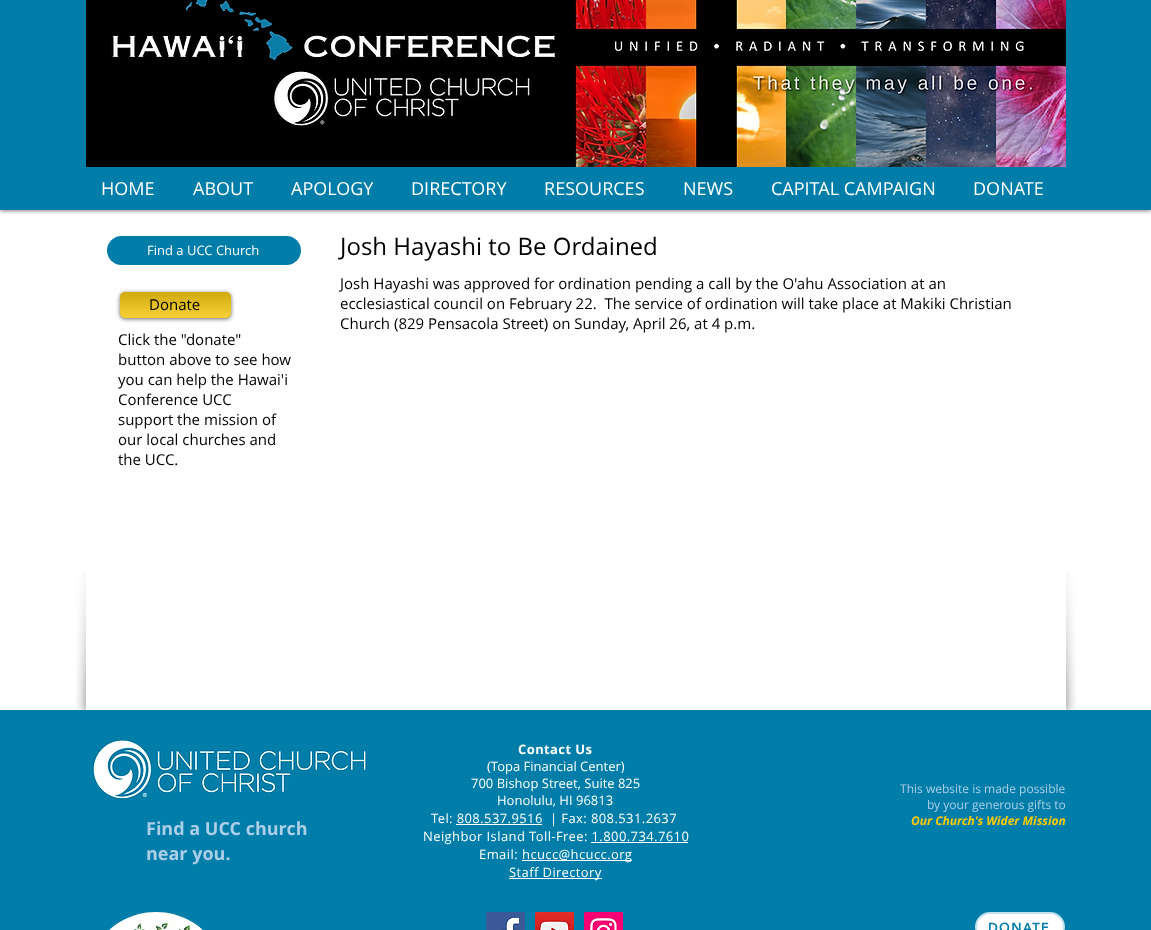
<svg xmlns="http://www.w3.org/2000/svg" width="1151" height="930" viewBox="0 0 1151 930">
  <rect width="100%" height="100%" fill="#fff"/>
  <path d="M0 -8h1151v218H0z" fill="#000000b3" filter="blur(2.5px)"/>
  <path d="M0 0h1151v210H0z" fill="#007ea9"/>
  <image x="86" y="0" width="980" height="167" href="img/1.png"/>
  <rect x="107" y="236" width="194" height="29" rx="14.5" fill="#007ea9"/>
  <rect x="120" y="293" width="111" height="26" rx="5" fill="#00000099" filter="blur(2px)"/>
  <rect x="120" y="292" width="111" height="26" rx="5" fill="#f8c800"/>
  <image x="120" y="292" width="111" height="26" href="img/2.png"/>
  <image x="120" y="292" width="111" height="26" href="img/3.png"/>
  <image x="76" y="572" width="10" height="138" href="img/4.png"/>
  <image x="1066" y="572" width="10" height="138" href="img/5.png"/>
  <path d="M0 710h1151v220H0z" fill="#007ea9"/>
  <image x="92" y="740" width="275" height="60" href="img/6.png"/>
  <path d="M456 824h86v1H456z" fill="#fff"/>
  <path d="M591 842h97v1H591z" fill="#fff"/>
  <path d="M522 860h110v1H522z" fill="#fff"/>
  <path d="M509 878h93v1H509z" fill="#fff"/>
  <image x="109" y="912" width="94" height="18" href="img/7.png"/>
  <image x="486" y="912" width="39" height="18" href="img/8.png"/>
  <image x="535" y="912" width="39" height="18" href="img/9.png"/>
  <image x="584" y="912" width="39" height="18" href="img/10.png"/>
  <rect x="976" y="913" width="88" height="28" rx="14" fill="#fff" stroke="#c0e1ed" stroke-width="2"/>
  <g font-family="Open Sans" font-size="18" fill="#fff">
    <text x="101" y="195">HOME</text>
    <text x="193" y="195">ABOUT</text>
    <text x="291" y="195">APOLOGY</text>
    <text x="411" y="195">DIRECTORY</text>
    <text x="544" y="195">RESOURCES</text>
    <text x="683" y="195">NEWS</text>
    <text x="771" y="195">CAPITAL CAMPAIGN</text>
    <text x="973" y="195">DONATE</text>
  </g>
  <text x="147" y="255" font-family="Open Sans" font-size="13" fill="#fff">Find a UCC Church</text>
  <text x="340" y="255" font-family="Open Sans" font-size="24" fill="#000">Josh Hayashi to Be Ordained</text>
  <g font-family="Open Sans" font-size="15" fill="#000">
    <text x="149" y="310">Donate</text>
    <text x="118" y="345">Click the "donate"</text>
    <text x="118" y="365">button above to see how</text>
    <text x="118" y="385">you can help the Hawai'i</text>
    <text x="118" y="405">Conference UCC</text>
    <text x="118" y="425">support the mission of</text>
    <text x="118" y="445">our local churches and</text>
    <text x="118" y="465">the UCC.</text>
    <text x="340" y="289">Josh Hayashi was approved for ordination pending a call by the O'ahu Association at an</text>
    <text x="340" y="309" xml:space="preserve">ecclesiastical council on February 22.  The service of ordination will take place at Makiki Christian</text>
    <text x="340" y="329">Church (829 Pensacola Street) on Sunday, April 26, at 4 p.m.</text>
  </g>
  <text x="518" y="754" font-family="Open Sans" font-size="13" font-weight="bold" letter-spacing="0.4" fill="#fff">Contact Us</text>
  <g font-family="Open Sans" font-size="13" fill="#fff">
    <text x="487" y="771">(Topa Financial Center)</text>
    <text x="471" y="788">700 Bishop Street, Suite 825</text>
    <text x="497" y="805">Honolulu, HI 96813</text>
  </g>
  <g font-family="Open Sans" font-size="13" letter-spacing="0.4" fill="#fff">
    <text x="431" y="823">Tel: 808.537.9516</text>
    <text x="550" y="823">| Fax: 808.531.2637</text>
    <text x="423" y="841">Neighbor Island Toll-Free: 1.800.734.7610</text>
    <text x="479" y="859">Email:</text>
    <text x="522" y="859">hcucc@hcucc.org</text>
    <text x="509" y="877">Staff Directory</text>
  </g>
  <g font-family="Open Sans" font-size="12" fill="#accee8">
    <text x="900" y="793">This website is made possible</text>
    <text x="927" y="809">by your generous gifts to</text>
  </g>
  <text x="911" y="825" font-family="Open Sans" font-size="12" font-weight="bold" font-style="italic" fill="#ffcb05">Our Church's Wider Mission</text>
  <g font-family="Open Sans" font-size="18" font-weight="bold" fill="#accee8">
    <text x="146" y="835">Find a UCC church</text>
    <text x="146" y="860">near you.</text>
  </g>
  <text x="988" y="932" font-family="'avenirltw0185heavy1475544'" font-size="13" font-weight="900" letter-spacing="1.25" fill="#007ea9">DONATE</text>
</svg>
